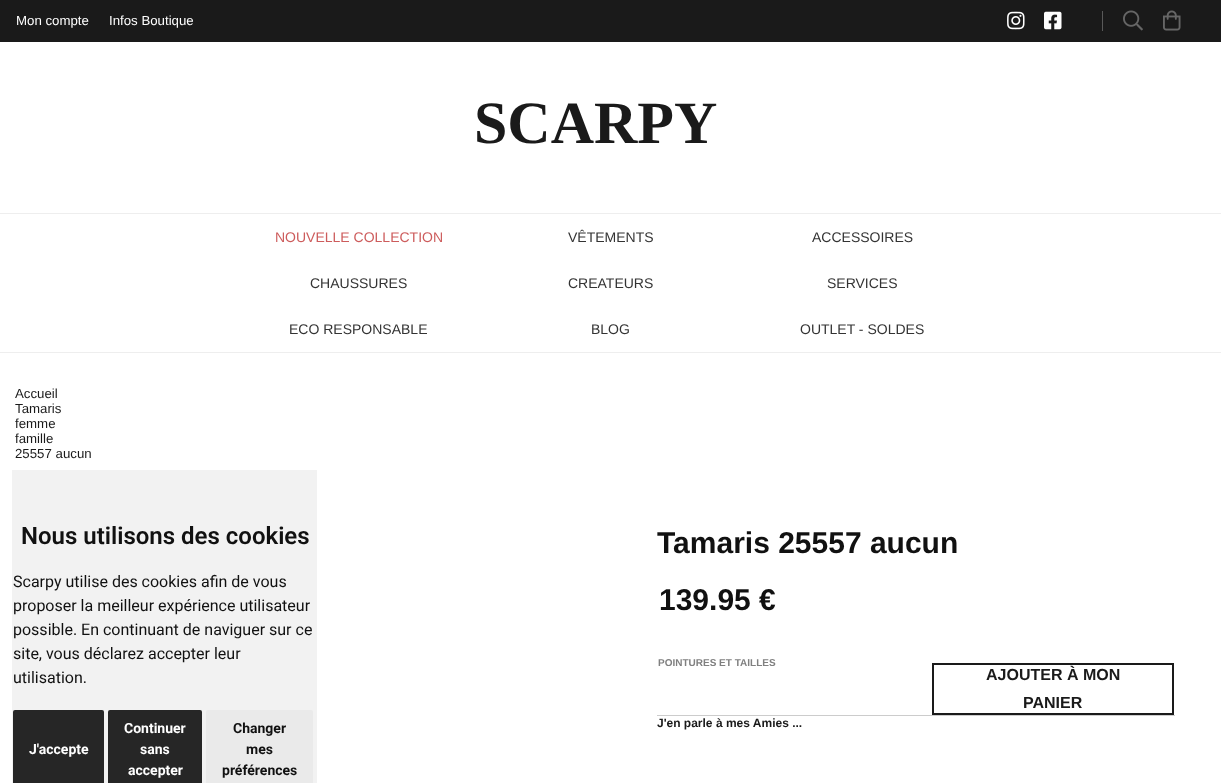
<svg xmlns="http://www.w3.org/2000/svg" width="1221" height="783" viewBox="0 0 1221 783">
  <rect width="100%" height="100%" fill="#fff"/>
  <path d="M0 0h1221v42H0z" fill="#1a1a1a"/>
  <path d="M1102 11h1v20H1102z" fill="#595959"/>
  <image x="1007" y="11" width="18" height="19" href="img/1.png"/>
  <image x="1044" y="11" width="18" height="19" href="img/2.png"/>
  <image x="1123" y="10" width="20" height="21" href="img/3.png"/>
  <image x="1163" y="10" width="18" height="21" href="img/4.png"/>
  <path d="M0 213h1221v1H0z" fill="#eee"/>
  <path d="M0 352h1221v1H0z" fill="#eee"/>
  <path d="M933 664h240v50H933z" fill="none" stroke="#1a1a1a" stroke-width="2"/>
  <path d="M657 715h518v1H657z" fill="#ccc"/>
  <path d="M12 470h305v313H12z" fill="#f2f2f2"/>
  <rect x="13" y="710" width="91" height="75" rx="2" fill="#262626"/>
  <rect x="108" y="710" width="94" height="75" rx="2" fill="#262626"/>
  <rect x="206" y="710" width="107" height="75" rx="2" fill="#eaeaea"/>
  <g font-family="Liberation Sans" font-size="13.25" fill="#fefefe">
    <text x="16" y="25">Mon compte</text>
    <text x="109" y="25">Infos Boutique</text>
  </g>
  <text x="474" y="143" font-family="Liberation Serif" font-size="60" font-weight="bold" fill="#1a1a1a">SCARPY</text>
  <text x="275" y="242" font-family="Liberation Sans" font-size="14" fill="#cd5c5c">NOUVELLE COLLECTION</text>
  <g font-family="Liberation Sans" font-size="14" fill="#333">
    <text x="568" y="242">VÊTEMENTS</text>
    <text x="812" y="242">ACCESSOIRES</text>
    <text x="310" y="288">CHAUSSURES</text>
    <text x="568" y="288">CREATEURS</text>
    <text x="827" y="288">SERVICES</text>
    <text x="289" y="334">ECO RESPONSABLE</text>
    <text x="591" y="334">BLOG</text>
    <text x="800" y="334">OUTLET - SOLDES</text>
  </g>
  <g font-family="Liberation Sans" font-size="13.25" fill="#1a1a1a">
    <text x="15" y="398">Accueil</text>
    <text x="15" y="413">Tamaris</text>
    <text x="15" y="428">femme</text>
    <text x="15" y="443">famille</text>
    <text x="15" y="458">25557 aucun</text>
  </g>
  <g font-family="Liberation Sans" font-size="30" font-weight="bold" fill="#111">
    <text x="657" y="553">Tamaris 25557 aucun</text>
    <text x="659" y="610">139.95 €</text>
  </g>
  <text x="658" y="666" font-family="Liberation Sans" font-size="10" font-weight="bold" fill="#808080">POINTURES ET TAILLES</text>
  <g font-family="Liberation Sans" font-size="16" font-weight="bold" fill="#1a1a1a">
    <text x="986" y="680">AJOUTER À MON</text>
    <text x="1023" y="708">PANIER</text>
  </g>
  <text x="657" y="727" font-family="Liberation Sans" font-size="12" font-weight="bold" fill="#1a1a1a">J'en parle à mes Amies ...</text>
  <text x="21" y="544" font-family="Roboto" font-size="24" font-weight="600" fill="#111">Nous utilisons des cookies</text>
  <g font-family="Roboto" font-size="16" fill="#111">
    <text x="13" y="587">Scarpy utilise des cookies afin de vous</text>
    <text x="13" y="611">proposer la meilleur expérience utilisateur</text>
    <text x="13" y="635">possible. En continuant de naviguer sur ce</text>
    <text x="13" y="659">site, vous déclarez accepter leur</text>
    <text x="13" y="683">utilisation.</text>
  </g>
  <g font-family="Roboto" font-size="14" font-weight="bold" fill="#fefefe">
    <text x="29" y="754">J'accepte</text>
    <text x="124" y="733">Continuer</text>
    <text x="140" y="754">sans</text>
    <text x="128" y="775">accepter</text>
  </g>
  <g font-family="Roboto" font-size="14" font-weight="bold" fill="#111">
    <text x="233" y="733">Changer</text>
    <text x="246" y="754">mes</text>
    <text x="222" y="775">préférences</text>
  </g>
</svg>
